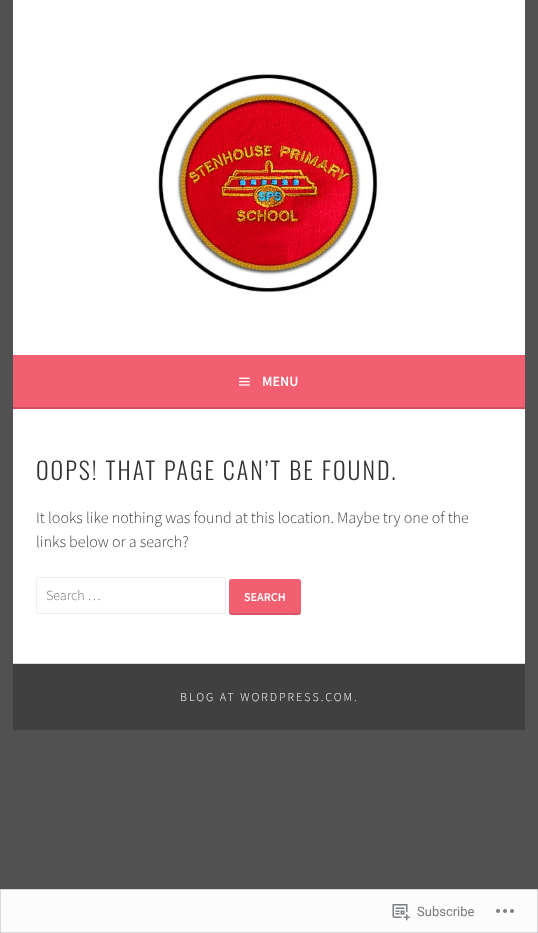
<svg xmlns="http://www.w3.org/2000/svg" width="538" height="933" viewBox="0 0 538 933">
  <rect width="100%" height="100%" fill="#515152"/>
  <path d="M13 0h512v355H13z" fill="#fff"/>
  <image x="158" y="73" width="220" height="220" href="img/1.png"/>
  <path d="M13 355h512v52H13z" fill="#f25f70"/>
  <path d="M13 407h512v2H13z" fill="#ce515f"/>
  <image x="239" y="377" width="11" height="9" href="img/2.png"/>
  <path d="M13 409h512v254H13z" fill="#fff"/>
  <rect x="36.5" y="577.5" width="189" height="36" rx="1.5" fill="none" stroke="#eee"/>
  <rect x="229" y="579" width="72" height="36" rx="3" fill="#f25f70"/>
  <path d="M229 610C229 618 235 615 243 615H287C295 615 301 618 301 610C301 612 300 613 298 613H232C230 613 229 612 229 610Z" fill="#0000001a"/>
  <path d="M13 664h512v66H13z" fill="#404040"/>
  <path d="M13 663h512v1H13z" fill="#d9d9d9"/>
  <path d="M0.5 889.5h537v43H0.5z" fill="#fcfcfc" stroke="#d9d9db"/>
  <image x="392" y="904" width="18" height="17" href="img/3.png"/>
  <image x="496" y="909" width="18" height="4" href="img/4.png"/>
  <text x="262" y="386" font-family="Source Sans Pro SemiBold" font-size="14" font-weight="600" fill="#fff">MENU</text>
  <text x="36" y="480" font-family="Oswald" font-size="24" font-weight="300" letter-spacing="2" fill="#333">OOPS! THAT PAGE CAN’T BE FOUND.</text>
  <g font-family="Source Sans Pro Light" font-size="16" font-weight="300" fill="#404040">
    <text x="36" y="523">It looks like nothing was found at this location. Maybe try one of the</text>
    <text x="36" y="547">links below or a search?</text>
  </g>
  <text x="46" y="600" font-family="Source Sans Pro Light" font-size="14" font-weight="300" fill="#757575">Search …</text>
  <text x="244" y="601" font-family="Source Sans Pro SemiBold" font-size="12" font-weight="600" fill="#fff">SEARCH</text>
  <text x="180" y="701" font-family="Source Sans Pro Light" font-size="12" font-weight="300" letter-spacing="2" fill="#fff">BLOG AT WORDPRESS.COM.</text>
  <text x="417" y="916" font-family="Roboto" font-size="13" fill="#777b81">Subscribe</text>
</svg>
